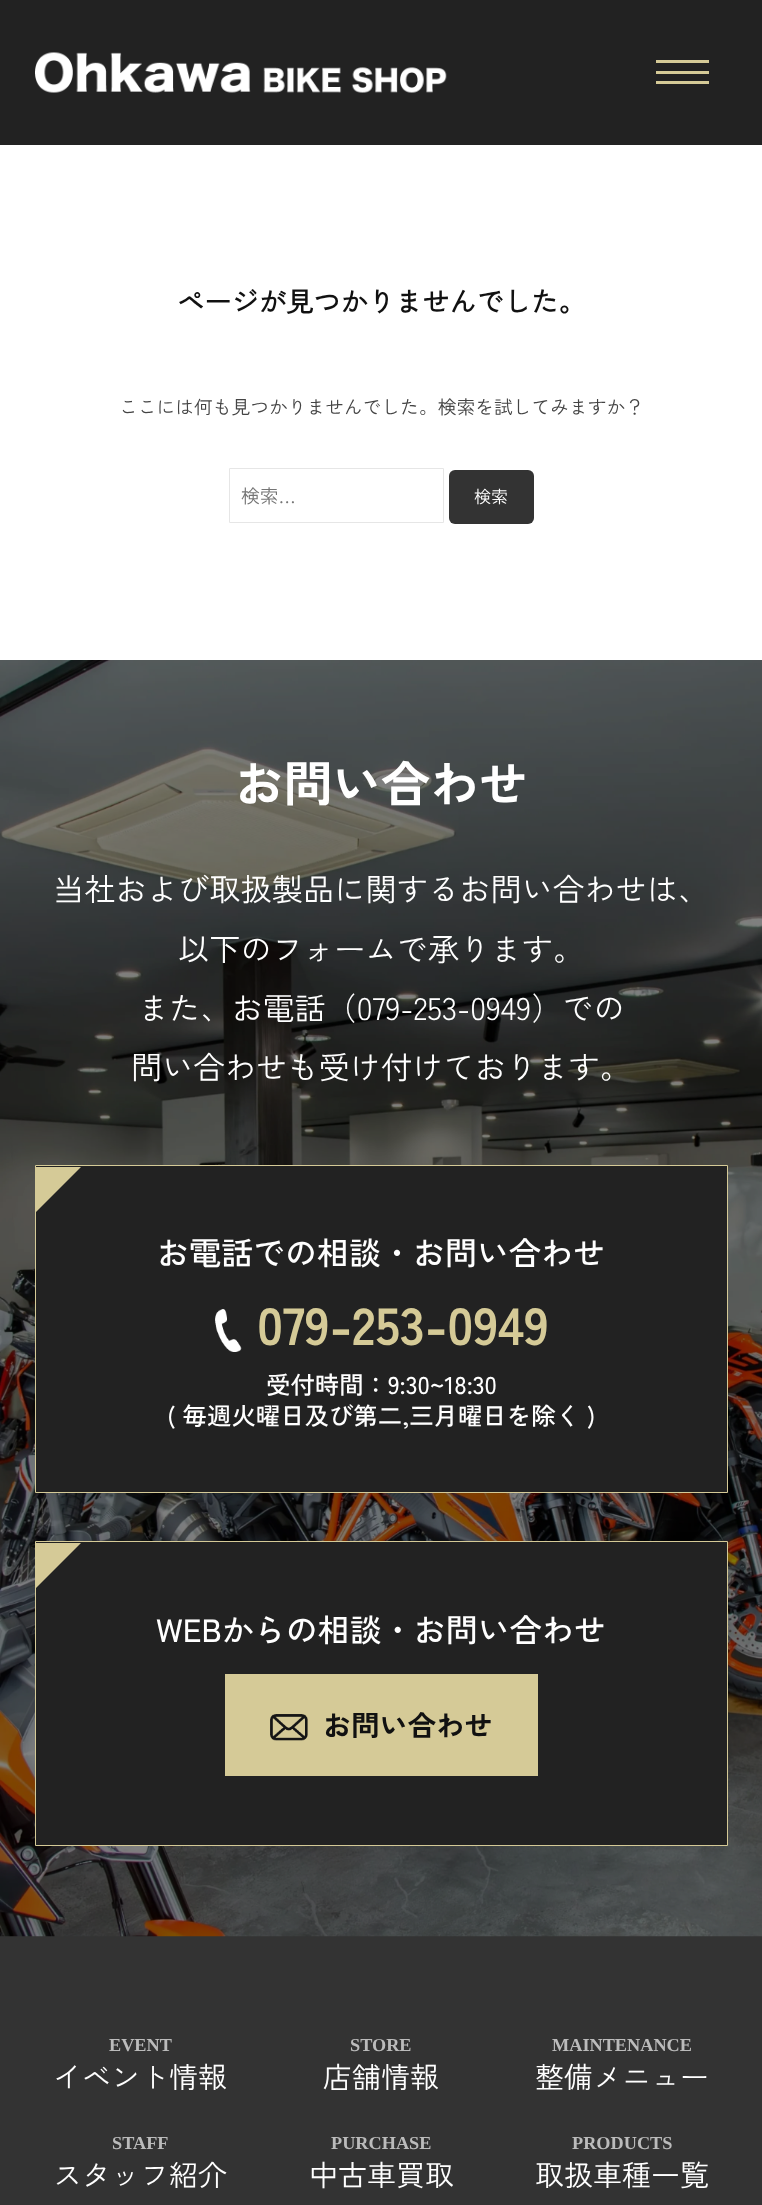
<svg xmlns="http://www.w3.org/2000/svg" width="762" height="2205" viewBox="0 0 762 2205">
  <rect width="100%" height="100%" fill="#fff"/>
  <path d="M0 0h762v145H0z" fill="#222"/>
  <image x="35" y="52" width="412" height="41" href="img/1.png"/>
  <path d="M656 71h53v3H656z" fill="#d5ca97"/>
  <path d="M656 60h53v3H656z" fill="#d5ca97"/>
  <path d="M656 81h53v3H656z" fill="#d5ca97"/>
  <path d="M229.5 468.5h214v54H229.5z" fill="none" stroke="#e6e6e6"/>
  <rect x="449" y="470" width="85" height="54" rx="6" fill="#333"/>
  <path d="M0 1936h762v269H0z" fill="#333"/>
  <image x="0" y="660" width="762" height="1277" href="img/2.png"/>
  <path d="M35.5 1165.5h692v327H35.5z" fill="#222" stroke="#d5ca97"/>
  <path d="M36 1212V1167H81Z" fill="#d5ca97"/>
  <image x="215" y="1309" width="27" height="43" href="img/3.png"/>
  <path d="M35.5 1541.5h692v304H35.5z" fill="#222" stroke="#d5ca97"/>
  <path d="M36 1588V1543H81Z" fill="#d5ca97"/>
  <path d="M225 1674h313v102H225z" fill="#d5ca97"/>
  <image x="270" y="1714" width="38" height="27" href="img/4.png"/>
  <text x="177" y="312" font-family="Zen Kaku Gothic New" font-size="27.25" font-weight="bold" fill="#111">ページが見つかりませんでした。</text>
  <text x="119" y="414" font-family="Zen Kaku Gothic New" font-size="18.75" fill="#444">ここには何も見つかりませんでした。検索を試してみますか？</text>
  <text x="241" y="503" font-family="Zen Kaku Gothic New" font-size="18.75" fill="#757575">検索…</text>
  <text x="474" y="503" font-family="Zen Kaku Gothic New" font-size="17" fill="#fff">検索</text>
  <text x="235" y="802" font-family="'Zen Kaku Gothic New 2'" font-size="48.75" font-weight="bold" fill="#fff">お問い合わせ</text>
  <g font-family="Zen Kaku Gothic New" font-size="31.25" fill="#fff">
    <text x="53" y="901">当社および取扱製品に関するお問い合わせは、</text>
    <text x="178" y="961">以下のフォームで承ります。</text>
    <text x="138" y="1020">また、お電話（079-253-0949）での</text>
    <text x="131" y="1079">問い合わせも受け付けております。</text>
  </g>
  <text x="157" y="1265" font-family="Zen Kaku Gothic New" font-size="32" font-weight="500" fill="#fff">お電話での相談・お問い合わせ</text>
  <text x="257" y="1345" font-family="'Zen Kaku Gothic New 2'" font-size="52" font-weight="bold" fill="#d5ca97">079-253-0949</text>
  <g font-family="Zen Kaku Gothic New" font-size="24.4" font-weight="500" fill="#fff">
    <text x="266" y="1394">受付時間：9:30~18:30</text>
    <text x="167" y="1425">( 毎週火曜日及び第二,三月曜日を除く )</text>
  </g>
  <text x="156" y="1642" font-family="Zen Kaku Gothic New" font-size="32" font-weight="500" fill="#fff">WEBからの相談・お問い合わせ</text>
  <text x="323" y="1736" font-family="'Zen Kaku Gothic New 2'" font-size="28.25" font-weight="bold" fill="#111">お問い合わせ</text>
  <text x="109" y="2051" font-family="Liberation Serif" font-size="18.25" font-weight="bold" fill="#bbb">EVENT</text>
  <text x="53" y="2088" font-family="Zen Kaku Gothic New" font-size="29" fill="#fff">イベント情報</text>
  <text x="350" y="2051" font-family="Liberation Serif" font-size="18.25" font-weight="bold" fill="#bbb">STORE</text>
  <text x="323" y="2088" font-family="Zen Kaku Gothic New" font-size="29" fill="#fff">店舗情報</text>
  <text x="552" y="2051" font-family="Liberation Serif" font-size="18.25" font-weight="bold" fill="#bbb">MAINTENANCE</text>
  <text x="535" y="2088" font-family="Zen Kaku Gothic New" font-size="29" fill="#fff">整備メニュー</text>
  <text x="112" y="2149" font-family="Liberation Serif" font-size="18.25" font-weight="bold" fill="#bbb">STAFF</text>
  <text x="53" y="2186" font-family="Zen Kaku Gothic New" font-size="29" fill="#fff">スタッフ紹介</text>
  <text x="331" y="2149" font-family="Liberation Serif" font-size="18.25" font-weight="bold" fill="#bbb">PURCHASE</text>
  <text x="309" y="2186" font-family="Zen Kaku Gothic New" font-size="29" fill="#fff">中古車買取</text>
  <text x="572" y="2149" font-family="Liberation Serif" font-size="18.25" font-weight="bold" fill="#bbb">PRODUCTS</text>
  <text x="535" y="2186" font-family="Zen Kaku Gothic New" font-size="29" fill="#fff">取扱車種一覧</text>
</svg>
